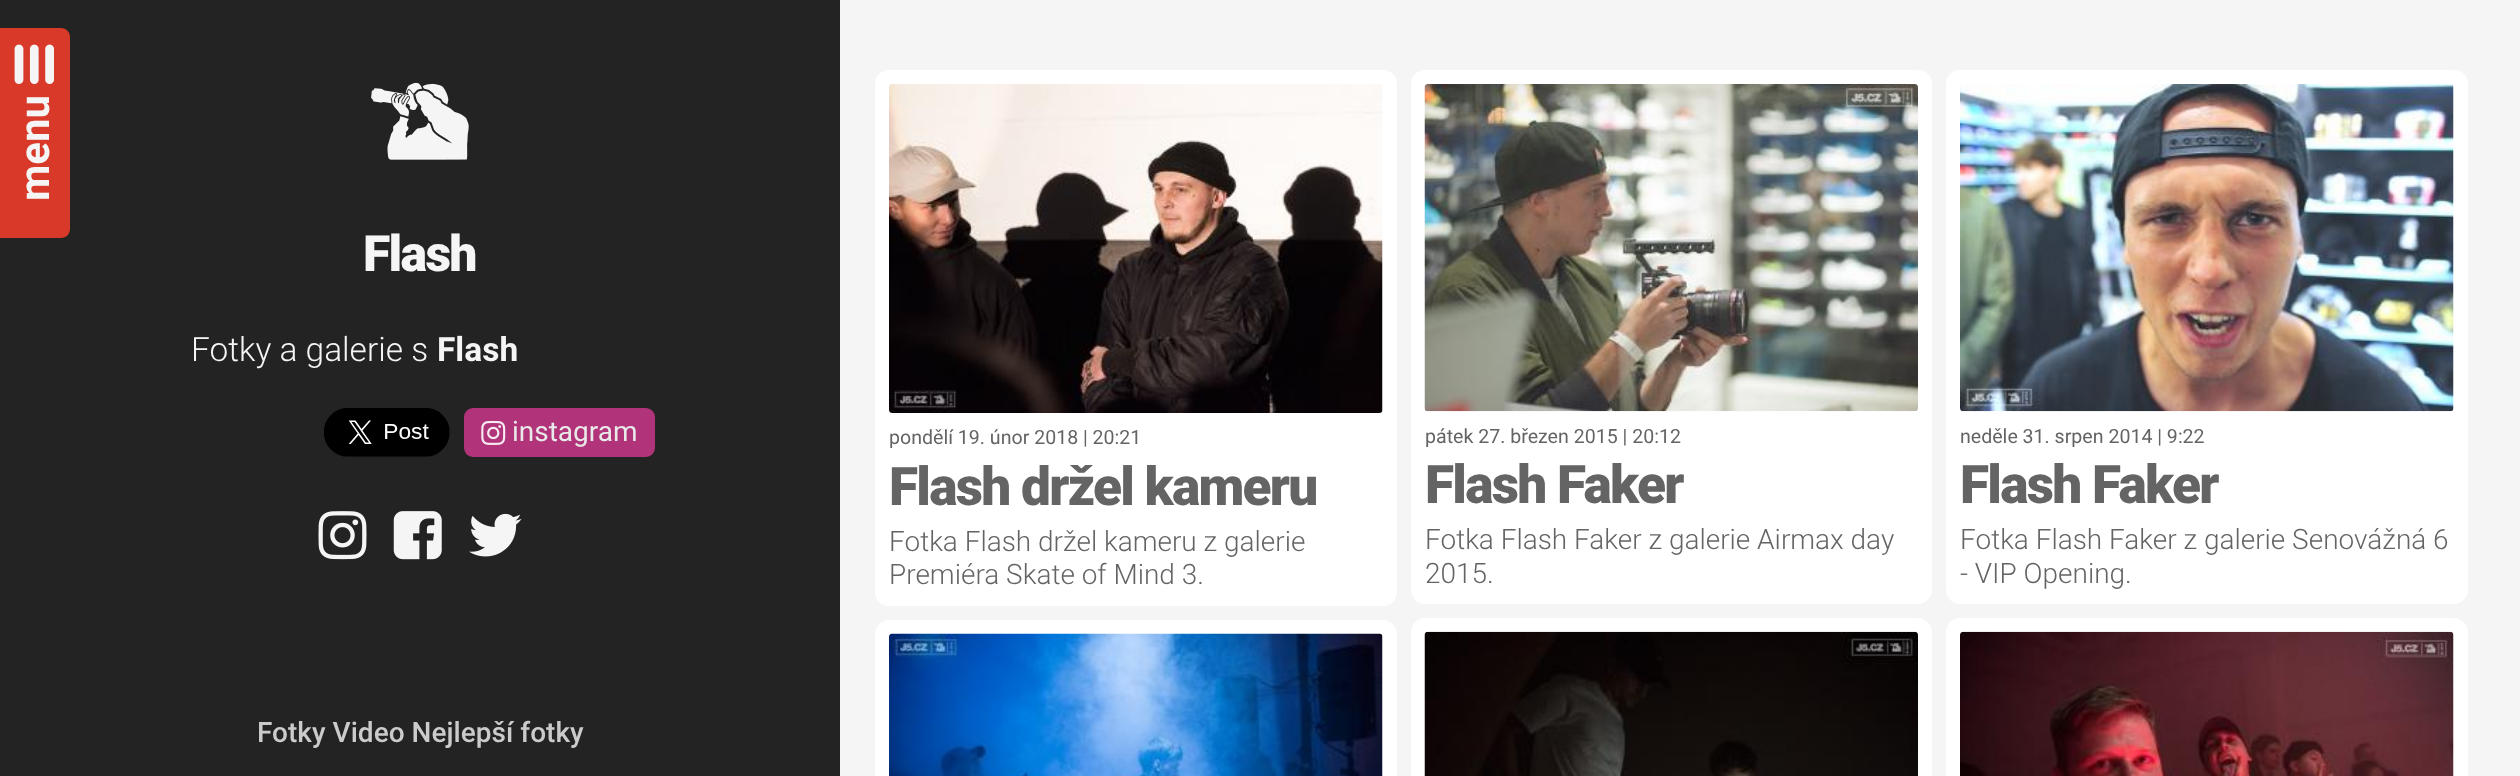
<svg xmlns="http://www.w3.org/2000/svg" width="2520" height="776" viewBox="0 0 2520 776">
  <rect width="100%" height="100%" fill="#232323"/>
  <path d="M0 28H61C66 28 70 32 70 37V229C70 234 66 238 61 238H0Z" fill="#d83928"/>
  <image x="14" y="44" width="40" height="40" href="img/1.png"/>
  <image x="371" y="82" width="98" height="78" href="img/2.png"/>
  <image x="324" y="408" width="126" height="49" href="img/3.png"/>
  <rect x="464" y="408" width="191" height="49" rx="9" fill="#b1337a"/>
  <image x="481" y="420" width="25" height="25" href="img/4.png"/>
  <image x="318" y="511" width="49" height="49" href="img/5.png"/>
  <image x="393" y="511" width="49" height="49" href="img/6.png"/>
  <image x="469" y="513" width="53" height="44" href="img/7.png"/>
  <path d="M840 0h1680v776H840z" fill="#f5f5f5"/>
  <rect x="875" y="70" width="522" height="536" rx="14" fill="#fff"/>
  <image x="889" y="84" width="494" height="329" href="img/8.png"/>
  <path d="M889 620H1383C1390.5 620 1397 626.5 1397 634V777H875V634C875 626.5 881.5 620 889 620Z" fill="#fff"/>
  <image x="889" y="633" width="494" height="143" href="img/9.png"/>
  <rect x="1411" y="70" width="521" height="534" rx="14" fill="#fff"/>
  <image x="1424" y="84" width="494" height="328" href="img/10.png"/>
  <path d="M1425 618H1918C1925.5 618 1932 624.5 1932 632V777H1411V632C1411 624.5 1417.5 618 1425 618Z" fill="#fff"/>
  <image x="1424" y="631" width="494" height="145" href="img/11.png"/>
  <rect x="1946" y="70" width="522" height="534" rx="14" fill="#fff"/>
  <image x="1960" y="84" width="494" height="328" href="img/12.png"/>
  <path d="M1960 618H2454C2461.5 618 2468 624.5 2468 632V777H1946V632C1946 624.5 1952.5 618 1960 618Z" fill="#fff"/>
  <image x="1960" y="631" width="494" height="145" href="img/13.png"/>
  <text x="49" y="201" transform="rotate(-90 49 201)" font-family="Roboto" font-size="42" font-weight="bold" fill="#f5f5f5">menu</text>
  <text x="363" y="271" font-family="Roboto" font-size="50" font-weight="900" letter-spacing="-1.75" fill="#f5f5f5">Flash</text>
  <text x="191" y="361" font-family="Roboto" font-size="33.5" font-weight="300" fill="#f5f5f5">Fotky a galerie s</text>
  <text x="437" y="361" font-family="Roboto" font-size="33.5" font-weight="bold" fill="#f5f5f5">Flash</text>
  <text x="512" y="441" font-family="Roboto" font-size="28" fill="#e9e9e9">instagram</text>
  <text x="889" y="444" font-family="Roboto" font-size="19.6" fill="#646464">pondělí 19. únor 2018 | 20:21</text>
  <text x="889" y="505" font-family="Roboto" font-size="53.25" font-weight="900" letter-spacing="-1.75" fill="#646464">Flash držel kameru</text>
  <g font-family="Roboto" font-size="28" font-weight="300" fill="#646464">
    <text x="889" y="551">Fotka Flash držel kameru z galerie</text>
    <text x="889" y="584">Premiéra Skate of Mind 3.</text>
  </g>
  <text x="1425" y="443" font-family="Roboto" font-size="19.6" fill="#646464">pátek 27. březen 2015 | 20:12</text>
  <text x="1425" y="503" font-family="Roboto" font-size="53.25" font-weight="900" letter-spacing="-1.75" fill="#646464">Flash Faker</text>
  <g font-family="Roboto" font-size="28" font-weight="300" fill="#646464">
    <text x="1425" y="549">Fotka Flash Faker z galerie Airmax day</text>
    <text x="1425" y="583">2015.</text>
  </g>
  <text x="1960" y="443" font-family="Roboto" font-size="19.6" fill="#646464">neděle 31. srpen 2014 | 9:22</text>
  <text x="1960" y="503" font-family="Roboto" font-size="53.25" font-weight="900" letter-spacing="-1.75" fill="#646464">Flash Faker</text>
  <g font-family="Roboto" font-size="28" font-weight="300" fill="#646464">
    <text x="1960" y="549">Fotka Flash Faker z galerie Senovážná 6</text>
    <text x="1960" y="583">- VIP Opening.</text>
  </g>
  <text x="257" y="742" font-family="Roboto" font-size="28" font-weight="500" fill="#cbcbcb">Fotky Video Nejlepší fotky</text>
</svg>
